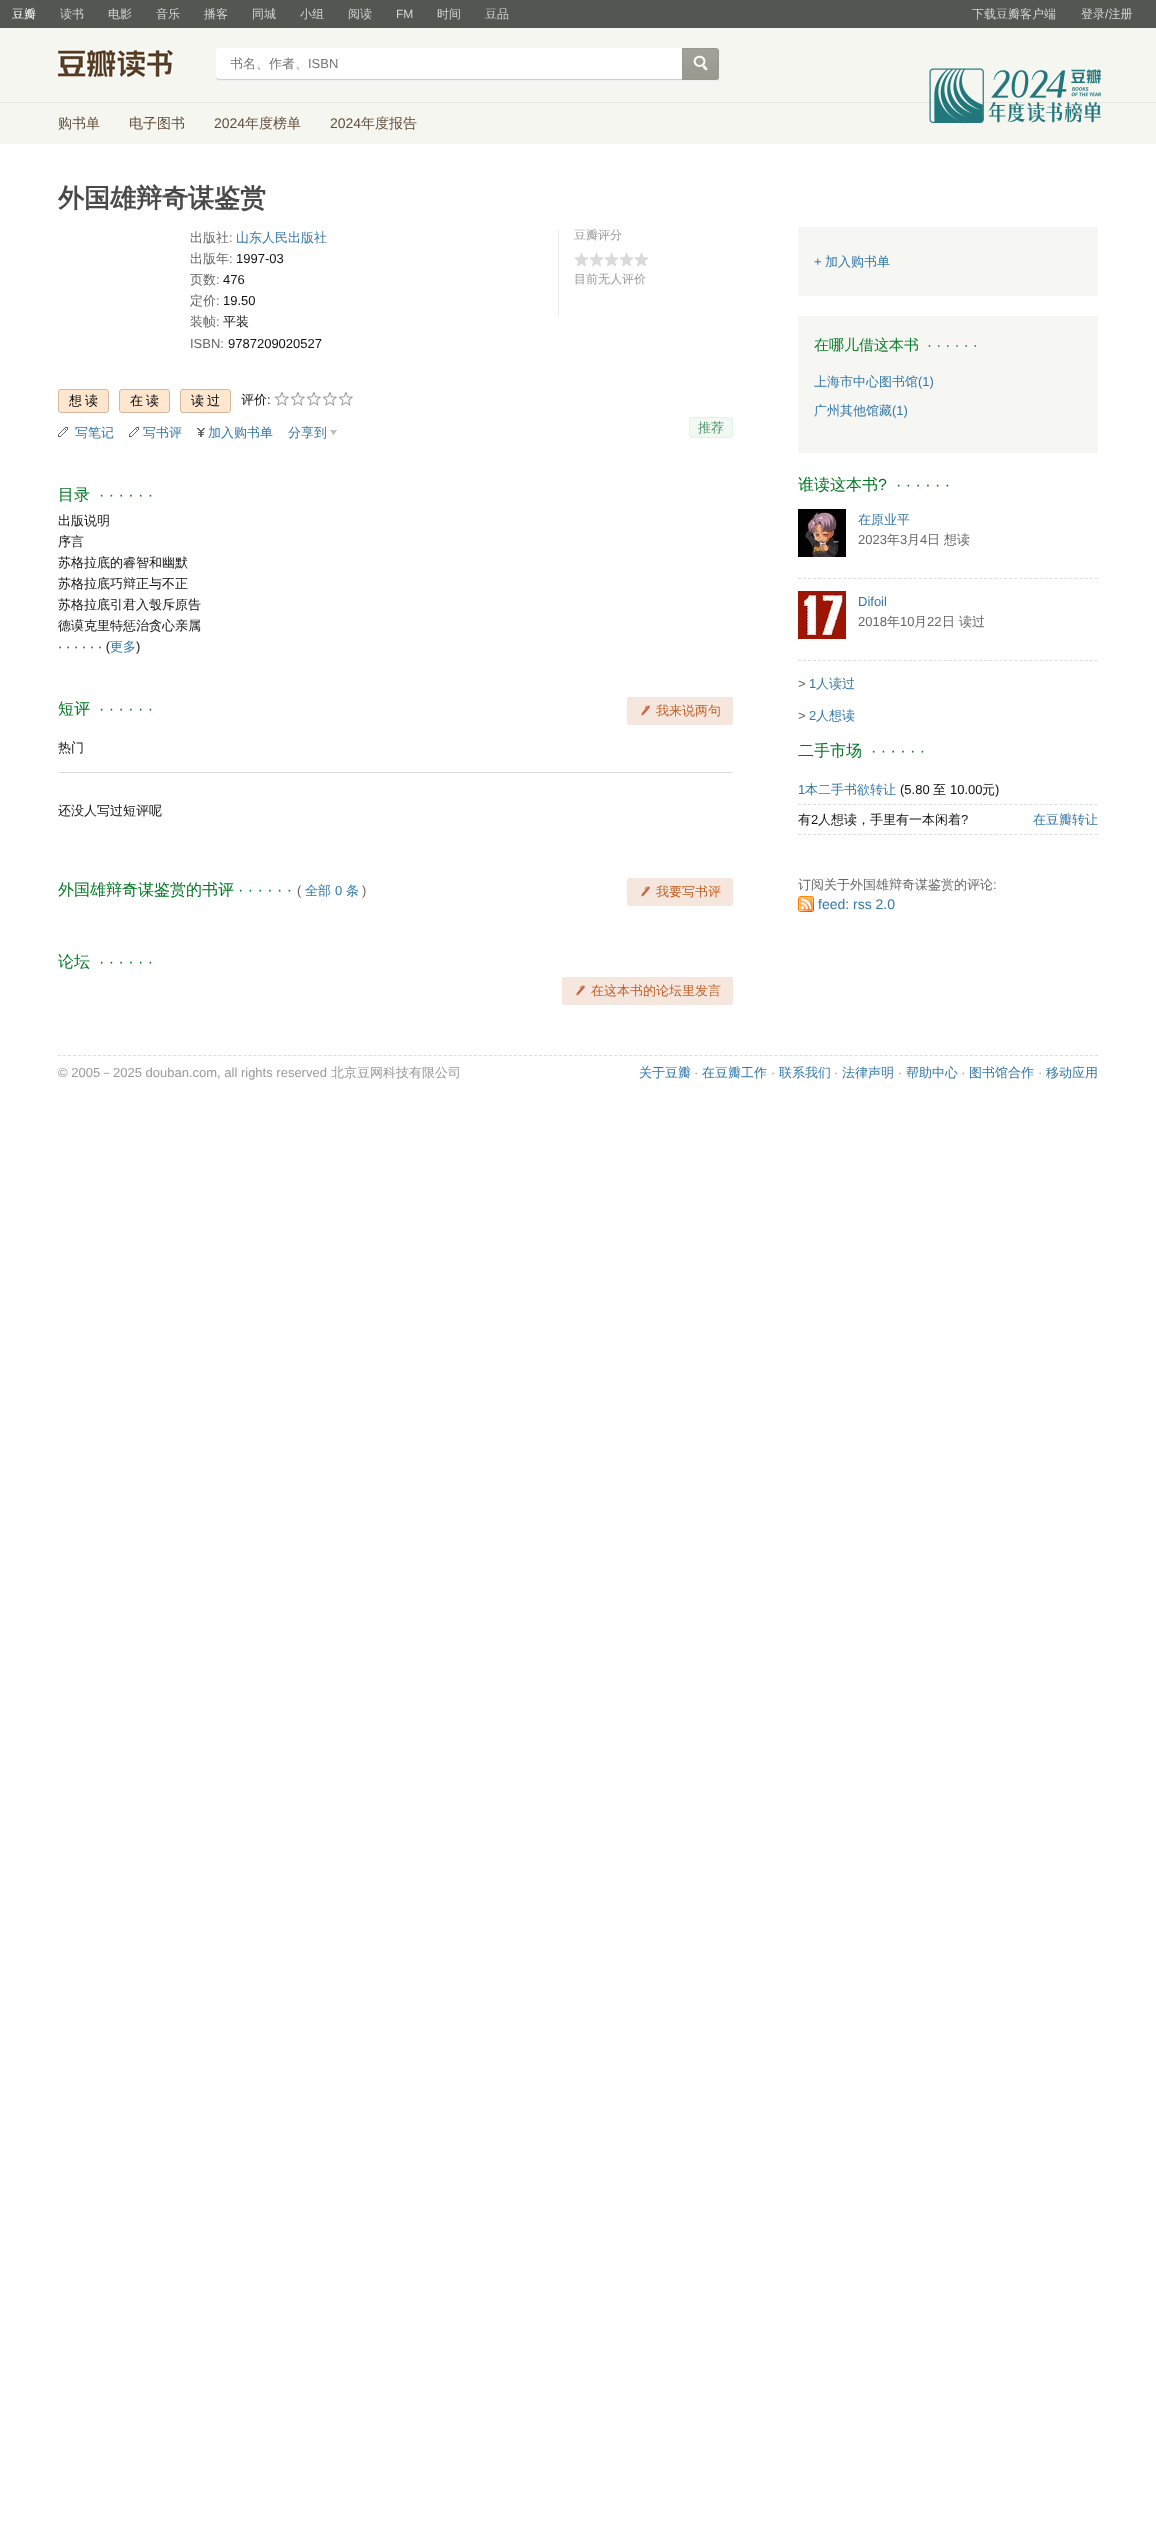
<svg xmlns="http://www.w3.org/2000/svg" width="1156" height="2548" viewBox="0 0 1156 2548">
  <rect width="100%" height="100%" fill="#fff"/>
  <path d="M0 0h1156v28H0z" fill="#545652"/>
  <path d="M0 28h1156v116H0z" fill="#f6f6f1"/>
  <path d="M0 102h1156v1H0z" fill="#e9e9e2"/>
  <image x="58" y="50" width="115" height="27" href="img/1.png"/>
  <image x="216" y="48" width="466" height="33" href="img/2.png"/>
  <image x="682" y="48" width="37" height="33" href="img/3.png"/>
  <image x="929" y="68" width="172" height="55" href="img/4.png"/>
  <path d="M558 229h1v87H558z" fill="#eaeaea"/>
  <image x="574" y="252" width="75" height="15" href="img/5.png"/>
  <rect x="58.5" y="389.5" width="50" height="23" rx="2.5" fill="#ffe6ce" stroke="#d6b79d"/>
  <rect x="119.5" y="389.5" width="50" height="23" rx="2.5" fill="#ffe6ce" stroke="#d6b79d"/>
  <rect x="180.5" y="389.5" width="50" height="23" rx="2.5" fill="#ffe6ce" stroke="#d6b79d"/>
  <image x="274" y="391" width="15" height="15" href="img/6.png"/>
  <image x="290" y="391" width="15" height="15" href="img/6.png"/>
  <image x="306" y="391" width="15" height="15" href="img/6.png"/>
  <image x="322" y="391" width="15" height="15" href="img/6.png"/>
  <image x="338" y="391" width="15" height="15" href="img/6.png"/>
  <image x="58" y="427" width="10" height="10" href="img/7.png"/>
  <image x="129" y="427" width="10" height="10" href="img/7.png"/>
  <image x="197" y="428" width="8" height="9" href="img/8.png"/>
  <image x="330" y="430" width="7" height="5" href="img/9.png"/>
  <rect x="689.5" y="417.5" width="43" height="20" rx="2.5" fill="#f2f8f2" stroke="#e3f1ed"/>
  <rect x="627" y="697" width="106" height="28" rx="2" fill="#f6e7de"/>
  <image x="641" y="705" width="9" height="11" href="img/10.png"/>
  <rect x="58" y="772" width="675" height="1" rx="0.5" fill="#ddd"/>
  <rect x="627" y="878" width="106" height="28" rx="2" fill="#f6e7de"/>
  <image x="641" y="886" width="9" height="11" href="img/10.png"/>
  <rect x="562" y="977" width="171" height="28" rx="2" fill="#f6e7de"/>
  <image x="576" y="985" width="9" height="11" href="img/10.png"/>
  <path d="M798 227h300v69H798z" fill="#f6f6f2"/>
  <path d="M798 316h300v137H798z" fill="#f6f6f2"/>
  <image x="798" y="509" width="48" height="48" href="img/11.png"/>
  <path d="M798 578.5H1098" fill="none" stroke="#ddd" stroke-dasharray="3 2.03"/>
  <image x="798" y="591" width="48" height="48" href="img/12.png"/>
  <path d="M798 660.5H1098" fill="none" stroke="#ddd" stroke-dasharray="3 2.03"/>
  <path d="M798 804.5H1098" fill="none" stroke="#ddd" stroke-dasharray="3 2.03"/>
  <path d="M798 834.5H1098" fill="none" stroke="#ddd" stroke-dasharray="3 2.03"/>
  <image x="798" y="896" width="16" height="16" href="img/13.png"/>
  <path d="M58 1055.5H1098" fill="none" stroke="#ddd" stroke-dasharray="3 2.01"/>
  <text x="12" y="18" font-family="WenQuanYi Zen Hei" font-size="12" font-weight="500" fill="#fff">豆瓣</text>
  <g font-family="WenQuanYi Zen Hei" font-size="12" font-weight="500" fill="#d5d5d5">
    <text x="60" y="18">读书</text>
    <text x="108" y="18">电影</text>
    <text x="156" y="18">音乐</text>
    <text x="204" y="18">播客</text>
    <text x="252" y="18">同城</text>
    <text x="300" y="18">小组</text>
    <text x="348" y="18">阅读</text>
  </g>
  <text x="396" y="18" font-family="Liberation Sans" font-size="12" fill="#d5d5d5">FM</text>
  <g font-family="WenQuanYi Zen Hei" font-size="12" font-weight="500" fill="#d5d5d5">
    <text x="437" y="18">时间</text>
    <text x="485" y="18">豆品</text>
    <text x="972" y="18">下载豆瓣客户端</text>
    <text x="1081" y="18">登录 注册</text>
  </g>
  <text x="1105" y="18" font-family="Liberation Sans" font-size="12" fill="#d5d5d5">/</text>
  <text x="230" y="68" font-family="WenQuanYi Zen Hei" font-size="13" font-weight="500" fill="#757575">书名、作者、</text>
  <text x="308" y="68" font-family="Liberation Sans" font-size="13" fill="#757575">ISBN</text>
  <g font-family="WenQuanYi Zen Hei" font-size="14" font-weight="500" fill="#614e3c">
    <text x="58" y="128">购书单</text>
    <text x="129" y="128">电子图书</text>
  </g>
  <text x="214" y="128" font-family="Liberation Sans" font-size="14" fill="#614e3c">2024</text>
  <text x="245" y="128" font-family="WenQuanYi Zen Hei" font-size="14" font-weight="500" fill="#614e3c">年度榜单</text>
  <text x="330" y="128" font-family="Liberation Sans" font-size="14" fill="#614e3c">2024</text>
  <text x="361" y="128" font-family="WenQuanYi Zen Hei" font-size="14" font-weight="500" fill="#614e3c">年度报告</text>
  <text x="58" y="207" font-family="WenQuanYi Zen Hei" font-size="26" font-weight="bold" fill="#494949">外国雄辩奇谋鉴赏</text>
  <text x="190" y="242" font-family="WenQuanYi Zen Hei" font-size="13" font-weight="500" fill="#666">出版社</text>
  <text x="229" y="242" font-family="Liberation Sans" font-size="13" fill="#666">:</text>
  <text x="236" y="242" font-family="WenQuanYi Zen Hei" font-size="13" font-weight="500" fill="#37a">山东人民出版社</text>
  <text x="190" y="263" font-family="WenQuanYi Zen Hei" font-size="13" font-weight="500" fill="#666">出版年</text>
  <text x="229" y="263" font-family="Liberation Sans" font-size="13" fill="#666">:</text>
  <text x="236" y="263" font-family="Liberation Sans" font-size="13" fill="#111">1997-03</text>
  <text x="190" y="284" font-family="WenQuanYi Zen Hei" font-size="13" font-weight="500" fill="#666">页数</text>
  <text x="216" y="284" font-family="Liberation Sans" font-size="13" fill="#666">:</text>
  <text x="223" y="284" font-family="Liberation Sans" font-size="13" fill="#111">476</text>
  <text x="190" y="305" font-family="WenQuanYi Zen Hei" font-size="13" font-weight="500" fill="#666">定价</text>
  <text x="216" y="305" font-family="Liberation Sans" font-size="13" fill="#666">:</text>
  <text x="223" y="305" font-family="Liberation Sans" font-size="13" fill="#111">19.50</text>
  <text x="190" y="326" font-family="WenQuanYi Zen Hei" font-size="13" font-weight="500" fill="#666">装帧</text>
  <text x="216" y="326" font-family="Liberation Sans" font-size="13" fill="#666">:</text>
  <text x="223" y="326" font-family="WenQuanYi Zen Hei" font-size="13" font-weight="500" fill="#111">平装</text>
  <text x="190" y="348" font-family="Liberation Sans" font-size="13" fill="#666">ISBN:</text>
  <text x="228" y="348" font-family="Liberation Sans" font-size="13" fill="#111">9787209020527</text>
  <g font-family="WenQuanYi Zen Hei" font-size="12" font-weight="500" fill="#999">
    <text x="574" y="239">豆瓣评分</text>
    <text x="574" y="283">目前无人评价</text>
  </g>
  <g font-family="WenQuanYi Zen Hei" font-size="13" font-weight="500" letter-spacing="3" fill="#000">
    <text x="69" y="405">想读</text>
    <text x="130" y="405">在读</text>
    <text x="191" y="405">读过</text>
  </g>
  <text x="241" y="404" font-family="WenQuanYi Zen Hei" font-size="13" font-weight="500" fill="#111">评价</text>
  <text x="267" y="404" font-family="Liberation Sans" font-size="13" fill="#111">:</text>
  <g font-family="WenQuanYi Zen Hei" font-size="13" font-weight="500" fill="#37a">
    <text x="75" y="437">写笔记</text>
    <text x="143" y="437">写书评</text>
    <text x="208" y="437">加入购书单</text>
    <text x="288" y="437">分享到</text>
  </g>
  <text x="698" y="432" font-family="WenQuanYi Zen Hei" font-size="13" font-weight="500" fill="#4f946e">推荐</text>
  <text x="58" y="500" font-family="WenQuanYi Zen Hei" font-size="16" font-weight="500" fill="#072">目录</text>
  <text x="99" y="500" font-family="Liberation Sans" font-size="16" fill="#072">· · · · · ·</text>
  <g font-family="WenQuanYi Zen Hei" font-size="13" font-weight="500" fill="#111">
    <text x="58" y="525">出版说明</text>
    <text x="58" y="546">序言</text>
    <text x="58" y="567">苏格拉底的睿智和幽默</text>
    <text x="58" y="588">苏格拉底巧辩正与不正</text>
    <text x="58" y="609">苏格拉底引君入彀斥原告</text>
    <text x="58" y="630">德谟克里特惩治贪心亲属</text>
  </g>
  <text x="58" y="651" font-family="Liberation Sans" font-size="13" fill="#111">· · · · · · (</text>
  <text x="110" y="651" font-family="WenQuanYi Zen Hei" font-size="13" font-weight="500" fill="#37a">更多</text>
  <text x="136" y="651" font-family="Liberation Sans" font-size="13" fill="#111">)</text>
  <text x="58" y="714" font-family="WenQuanYi Zen Hei" font-size="16" font-weight="500" fill="#072">短评</text>
  <text x="99" y="714" font-family="Liberation Sans" font-size="16" fill="#072">· · · · · ·</text>
  <text x="656" y="715" font-family="WenQuanYi Zen Hei" font-size="13" font-weight="500" fill="#c65e24">我来说两句</text>
  <g font-family="WenQuanYi Zen Hei" font-size="13" font-weight="500" fill="#111">
    <text x="58" y="752">热门</text>
    <text x="58" y="815">还没人写过短评呢</text>
  </g>
  <text x="58" y="895" font-family="WenQuanYi Zen Hei" font-size="16" font-weight="500" fill="#072">外国雄辩奇谋鉴赏的书评</text>
  <text x="238" y="895" font-family="Liberation Sans" font-size="16" fill="#072">· · · · · ·</text>
  <text x="297" y="895" font-family="Liberation Sans" font-size="13" fill="#666">(</text>
  <text x="305" y="895" font-family="WenQuanYi Zen Hei" font-size="13" font-weight="500" fill="#37a">全部</text>
  <text x="335" y="895" font-family="Liberation Sans" font-size="13" fill="#37a">0</text>
  <text x="346" y="895" font-family="WenQuanYi Zen Hei" font-size="13" font-weight="500" fill="#37a">条</text>
  <text x="362" y="895" font-family="Liberation Sans" font-size="13" fill="#666">)</text>
  <text x="656" y="896" font-family="WenQuanYi Zen Hei" font-size="13" font-weight="500" fill="#c65e24">我要写书评</text>
  <text x="58" y="967" font-family="WenQuanYi Zen Hei" font-size="16" font-weight="500" fill="#072">论坛</text>
  <text x="99" y="967" font-family="Liberation Sans" font-size="16" fill="#072">· · · · · ·</text>
  <text x="591" y="995" font-family="WenQuanYi Zen Hei" font-size="13" font-weight="500" fill="#c65e24">在这本书的论坛里发言</text>
  <text x="814" y="266" font-family="Liberation Sans" font-size="13" fill="#37a">+</text>
  <text x="825" y="266" font-family="WenQuanYi Zen Hei" font-size="13" font-weight="500" fill="#37a">加入购书单</text>
  <text x="814" y="350" font-family="WenQuanYi Zen Hei" font-size="15" font-weight="500" fill="#0b7c2a">在哪儿借这本书</text>
  <text x="927" y="350" font-family="Liberation Sans" font-size="15" fill="#0b7c2a">· · · · · ·</text>
  <text x="814" y="386" font-family="WenQuanYi Zen Hei" font-size="13" font-weight="500" fill="#37a">上海市中心图书馆</text>
  <text x="918" y="386" font-family="Liberation Sans" font-size="13" fill="#37a">(1)</text>
  <text x="814" y="415" font-family="WenQuanYi Zen Hei" font-size="13" font-weight="500" fill="#37a">广州其他馆藏</text>
  <text x="892" y="415" font-family="Liberation Sans" font-size="13" fill="#37a">(1)</text>
  <text x="798" y="490" font-family="WenQuanYi Zen Hei" font-size="16" font-weight="500" fill="#072">谁读这本书</text>
  <g font-family="Liberation Sans" font-size="16" fill="#072">
    <text x="878" y="490">?</text>
    <text x="896" y="490">· · · · · ·</text>
  </g>
  <text x="858" y="524" font-family="WenQuanYi Zen Hei" font-size="13" font-weight="500" fill="#37a">在原业平</text>
  <text x="858" y="544" font-family="Liberation Sans" font-size="13" fill="#666">2023</text>
  <text x="887" y="544" font-family="WenQuanYi Zen Hei" font-size="13" font-weight="500" fill="#666">年</text>
  <text x="900" y="544" font-family="Liberation Sans" font-size="13" fill="#666">3</text>
  <text x="907" y="544" font-family="WenQuanYi Zen Hei" font-size="13" font-weight="500" fill="#666">月</text>
  <text x="920" y="544" font-family="Liberation Sans" font-size="13" fill="#666">4</text>
  <text x="927" y="544" font-family="WenQuanYi Zen Hei" font-size="13" font-weight="500" fill="#666">日 想读</text>
  <text x="858" y="606" font-family="Liberation Sans" font-size="13" fill="#37a">Difoil</text>
  <text x="858" y="626" font-family="Liberation Sans" font-size="13" fill="#666">2018</text>
  <text x="887" y="626" font-family="WenQuanYi Zen Hei" font-size="13" font-weight="500" fill="#666">年</text>
  <text x="900" y="626" font-family="Liberation Sans" font-size="13" fill="#666">10</text>
  <text x="914" y="626" font-family="WenQuanYi Zen Hei" font-size="13" font-weight="500" fill="#666">月</text>
  <text x="927" y="626" font-family="Liberation Sans" font-size="13" fill="#666">22</text>
  <text x="942" y="626" font-family="WenQuanYi Zen Hei" font-size="13" font-weight="500" fill="#666">日 读过</text>
  <text x="798" y="688" font-family="Liberation Sans" font-size="13" fill="#666">&gt;</text>
  <text x="809" y="688" font-family="Liberation Sans" font-size="13" fill="#37a">1</text>
  <text x="816" y="688" font-family="WenQuanYi Zen Hei" font-size="13" font-weight="500" fill="#37a">人读过</text>
  <text x="798" y="720" font-family="Liberation Sans" font-size="13" fill="#666">&gt;</text>
  <text x="809" y="720" font-family="Liberation Sans" font-size="13" fill="#37a">2</text>
  <text x="816" y="720" font-family="WenQuanYi Zen Hei" font-size="13" font-weight="500" fill="#37a">人想读</text>
  <text x="798" y="756" font-family="WenQuanYi Zen Hei" font-size="16" font-weight="500" fill="#072">二手市场</text>
  <text x="871" y="756" font-family="Liberation Sans" font-size="16" fill="#072">· · · · · ·</text>
  <text x="798" y="794" font-family="Liberation Sans" font-size="13" fill="#37a">1</text>
  <text x="805" y="794" font-family="WenQuanYi Zen Hei" font-size="13" font-weight="500" fill="#37a">本二手书欲转让</text>
  <text x="900" y="794" font-family="Liberation Sans" font-size="13" fill="#111">(5.80</text>
  <text x="933" y="794" font-family="WenQuanYi Zen Hei" font-size="13" font-weight="500" fill="#111">至</text>
  <text x="950" y="794" font-family="Liberation Sans" font-size="13" fill="#111">10.00</text>
  <text x="982" y="794" font-family="WenQuanYi Zen Hei" font-size="13" font-weight="500" fill="#111">元</text>
  <text x="995" y="794" font-family="Liberation Sans" font-size="13" fill="#111">)</text>
  <text x="798" y="824" font-family="WenQuanYi Zen Hei" font-size="13" font-weight="500" fill="#111">有</text>
  <text x="811" y="824" font-family="Liberation Sans" font-size="13" fill="#111">2</text>
  <text x="818" y="824" font-family="WenQuanYi Zen Hei" font-size="13" font-weight="500" fill="#111">人想读，手里有一本闲着</text>
  <text x="961" y="824" font-family="Liberation Sans" font-size="13" fill="#111">?</text>
  <text x="1033" y="824" font-family="WenQuanYi Zen Hei" font-size="13" font-weight="500" fill="#37a">在豆瓣转让</text>
  <text x="798" y="889" font-family="WenQuanYi Zen Hei" font-size="13" font-weight="500" fill="#666">订阅关于外国雄辩奇谋鉴赏的评论</text>
  <text x="993" y="889" font-family="Liberation Sans" font-size="13" fill="#666">:</text>
  <text x="818" y="909" font-family="Liberation Sans" font-size="14" fill="#37a">feed: rss 2.0</text>
  <text x="58" y="1077" font-family="Liberation Sans" font-size="13" fill="#999">© 2005</text>
  <text x="100" y="1077" font-family="WenQuanYi Zen Hei" font-size="13" font-weight="500" fill="#999">－</text>
  <text x="113" y="1077" font-family="Liberation Sans" font-size="13" fill="#999">2025 douban.com, all rights reserved</text>
  <text x="331" y="1077" font-family="WenQuanYi Zen Hei" font-size="13" font-weight="500" fill="#999">北京豆网科技有限公司</text>
  <text x="639" y="1077" font-family="WenQuanYi Zen Hei" font-size="13" font-weight="500" fill="#37a">关于豆瓣</text>
  <text x="694" y="1077" font-family="Liberation Sans" font-size="13" fill="#999">·</text>
  <text x="702" y="1077" font-family="WenQuanYi Zen Hei" font-size="13" font-weight="500" fill="#37a">在豆瓣工作</text>
  <text x="771" y="1077" font-family="Liberation Sans" font-size="13" fill="#999">·</text>
  <text x="779" y="1077" font-family="WenQuanYi Zen Hei" font-size="13" font-weight="500" fill="#37a">联系我们</text>
  <text x="834" y="1077" font-family="Liberation Sans" font-size="13" fill="#999">·</text>
  <text x="842" y="1077" font-family="WenQuanYi Zen Hei" font-size="13" font-weight="500" fill="#37a">法律声明</text>
  <text x="898" y="1077" font-family="Liberation Sans" font-size="13" fill="#999">·</text>
  <text x="906" y="1077" font-family="WenQuanYi Zen Hei" font-size="13" font-weight="500" fill="#37a">帮助中心</text>
  <text x="961" y="1077" font-family="Liberation Sans" font-size="13" fill="#999">·</text>
  <text x="969" y="1077" font-family="WenQuanYi Zen Hei" font-size="13" font-weight="500" fill="#37a">图书馆合作</text>
  <text x="1038" y="1077" font-family="Liberation Sans" font-size="13" fill="#999">·</text>
  <text x="1046" y="1077" font-family="WenQuanYi Zen Hei" font-size="13" font-weight="500" fill="#37a">移动应用</text>
</svg>
